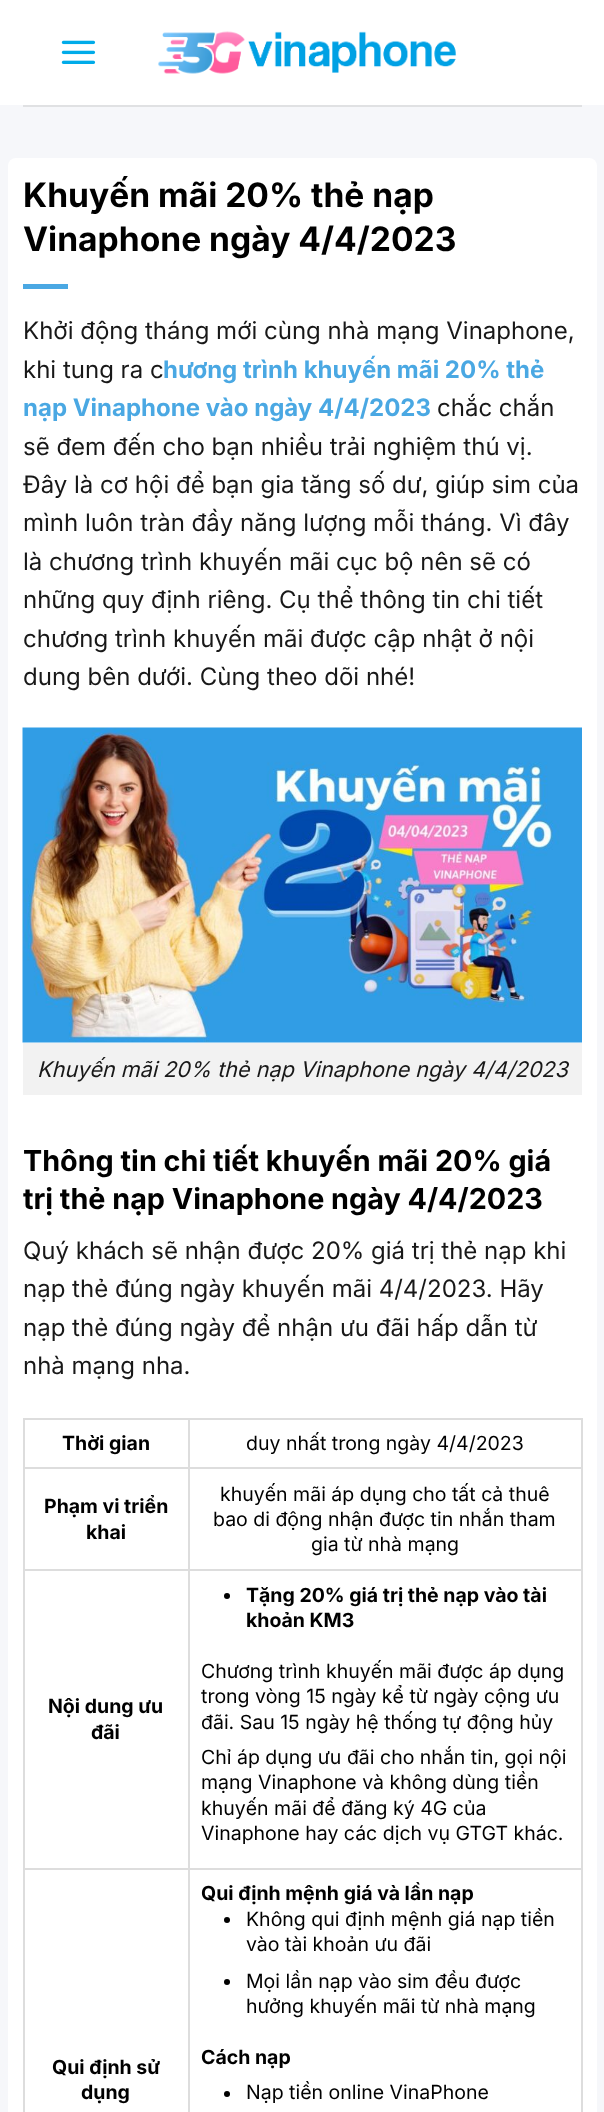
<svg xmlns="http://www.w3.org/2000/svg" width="604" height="2112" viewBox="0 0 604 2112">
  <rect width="100%" height="100%" fill="#fff"/>
  <image x="61" y="40" width="35" height="24" href="img/1.png"/>
  <image x="158" y="31" width="299" height="43" href="img/2.png"/>
  <path d="M0 105h604v2007H0z" fill="#f6f7fa"/>
  <path d="M23 105h559v2H23z" fill="#e0e1e3"/>
  <rect x="8" y="158" width="589" height="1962" rx="8" fill="#fff"/>
  <path d="M23 284h45v5H23z" fill="#4aa8e3"/>
  <image x="22" y="727" width="560" height="316" href="img/3.png"/>
  <path d="M23 1043h559v52H23z" fill="#f2f2f2"/>
  <path d="M188 1418h394v2H188z" fill="#ddd"/>
  <path d="M188 1467h394v2H188z" fill="#ddd"/>
  <path d="M188 1569h394v2H188z" fill="#ddd"/>
  <path d="M188 1868h394v2H188z" fill="#ddd"/>
  <path d="M188 1868h2v244H188z" fill="#ddd"/>
  <path d="M23 1868h166v2H23z" fill="#ddd"/>
  <path d="M188 1569h2v300H188z" fill="#ddd"/>
  <path d="M23 1569h166v2H23z" fill="#ddd"/>
  <path d="M188 1467h2v104H188z" fill="#ddd"/>
  <path d="M23 1467h166v2H23z" fill="#ddd"/>
  <path d="M188 1418h2v51H188z" fill="#ddd"/>
  <path d="M23 1418h166v2H23z" fill="#ddd"/>
  <path d="M23 1868h2v244H23z" fill="#ddd"/>
  <path d="M23 1569h2v300H23z" fill="#ddd"/>
  <path d="M23 1467h2v104H23z" fill="#ddd"/>
  <path d="M23 1418h2v51H23z" fill="#ddd"/>
  <path d="M581 1868h2v244H581z" fill="#ddd"/>
  <path d="M581 1569h2v300H581z" fill="#ddd"/>
  <path d="M581 1467h2v104H581z" fill="#ddd"/>
  <path d="M581 1418h2v51H581z" fill="#ddd"/>
  <circle cx="227" cy="1596" r="3" fill="#000"/>
  <circle cx="227" cy="1920" r="3" fill="#000"/>
  <circle cx="227" cy="1982" r="3" fill="#000"/>
  <circle cx="227" cy="2094" r="3" fill="#000"/>
  <g font-family="Inter" font-size="33.6" font-weight="bold" fill="#000">
    <text x="23" y="207">Khuyến mãi 20% thẻ nạp</text>
    <text x="23" y="251">Vinaphone ngày 4/4/2023</text>
  </g>
  <g font-family="Inter" font-size="24" fill="#181818">
    <text x="23" y="339">Khởi động tháng mới cùng nhà mạng Vinaphone,</text>
    <text x="23" y="378">khi tung ra c</text>
  </g>
  <g font-family="Inter" font-size="24" font-weight="bold" fill="#4aa8e3">
    <text x="163" y="378">hương trình khuyến mãi 20% thẻ</text>
    <text x="23" y="416">nạp Vinaphone vào ngày 4/4/2023</text>
  </g>
  <g font-family="Inter" font-size="24" fill="#181818">
    <text x="437" y="416">chắc chắn</text>
    <text x="23" y="455">sẽ đem đến cho bạn nhiều trải nghiệm thú vị.</text>
    <text x="23" y="493">Đây là cơ hội để bạn gia tăng số dư, giúp sim của</text>
    <text x="23" y="531">mình luôn tràn đầy năng lượng mỗi tháng. Vì đây</text>
    <text x="23" y="570">là chương trình khuyến mãi cục bộ nên sẽ có</text>
    <text x="23" y="608">những quy định riêng. Cụ thể thông tin chi tiết</text>
    <text x="23" y="647">chương trình khuyến mãi được cập nhật ở nội</text>
    <text x="23" y="685">dung bên dưới. Cùng theo dõi nhé!</text>
  </g>
  <text x="37" y="1077" font-family="Inter" font-size="21.6" font-style="italic" fill="#181818">Khuyến mãi 20% thẻ nạp Vinaphone ngày 4/4/2023</text>
  <g font-family="Inter" font-size="28.75" font-weight="bold" fill="#000">
    <text x="23" y="1171">Thông tin chi tiết khuyến mãi 20% giá</text>
    <text x="23" y="1209">trị thẻ nạp Vinaphone ngày 4/4/2023</text>
  </g>
  <g font-family="Inter" font-size="24" fill="#181818">
    <text x="23" y="1259">Quý khách sẽ nhận được 20% giá trị thẻ nạp khi</text>
    <text x="23" y="1297">nạp thẻ đúng ngày khuyến mãi 4/4/2023. Hãy</text>
    <text x="23" y="1336">nạp thẻ đúng ngày để nhận ưu đãi hấp dẫn từ</text>
    <text x="23" y="1374">nhà mạng nha.</text>
  </g>
  <text x="62" y="1450" font-family="Inter" font-size="19.5" font-weight="bold" fill="#000">Thời gian</text>
  <text x="246" y="1450" font-family="Inter" font-size="19.5" fill="#000">duy nhất trong ngày 4/4/2023</text>
  <g font-family="Inter" font-size="19.5" font-weight="bold" fill="#000">
    <text x="44" y="1513">Phạm vi triển</text>
    <text x="86" y="1539">khai</text>
  </g>
  <g font-family="Inter" font-size="19.5" fill="#000">
    <text x="220" y="1501">khuyến mãi áp dụng cho tất cả thuê</text>
    <text x="213" y="1526">bao di động nhận được tin nhắn tham</text>
    <text x="311" y="1551">gia từ nhà mạng</text>
  </g>
  <g font-family="Inter" font-size="19.5" font-weight="bold" fill="#000">
    <text x="48" y="1713">Nội dung ưu</text>
    <text x="91" y="1739">đãi</text>
    <text x="246" y="1602">Tặng 20% giá trị thẻ nạp vào tài</text>
    <text x="246" y="1627">khoản KM3</text>
  </g>
  <g font-family="Inter" font-size="19.5" fill="#000">
    <text x="201" y="1678">Chương trình khuyến mãi được áp dụng</text>
    <text x="201" y="1703">trong vòng 15 ngày kể từ ngày cộng ưu</text>
    <text x="201" y="1729">đãi. Sau 15 ngày hệ thống tự động hủy</text>
    <text x="201" y="1764">Chỉ áp dụng ưu đãi cho nhắn tin, gọi nội</text>
    <text x="201" y="1789">mạng Vinaphone và không dùng tiền</text>
    <text x="201" y="1815">khuyến mãi để đăng ký 4G của</text>
    <text x="201" y="1840">Vinaphone hay các dịch vụ GTGT khác.</text>
  </g>
  <g font-family="Inter" font-size="19.5" font-weight="bold" fill="#000">
    <text x="52" y="2074">Qui định sử</text>
    <text x="81" y="2099">dụng</text>
    <text x="201" y="1900">Qui định mệnh giá và lần nạp</text>
  </g>
  <g font-family="Inter" font-size="19.5" fill="#000">
    <text x="246" y="1926">Không qui định mệnh giá nạp tiền</text>
    <text x="246" y="1951">vào tài khoản ưu đãi</text>
    <text x="246" y="1988">Mọi lần nạp vào sim đều được</text>
    <text x="246" y="2013">hưởng khuyến mãi từ nhà mạng</text>
  </g>
  <text x="201" y="2064" font-family="Inter" font-size="19.5" font-weight="bold" fill="#000">Cách nạp</text>
  <text x="246" y="2099" font-family="Inter" font-size="19.5" fill="#000">Nạp tiền online VinaPhone</text>
</svg>
